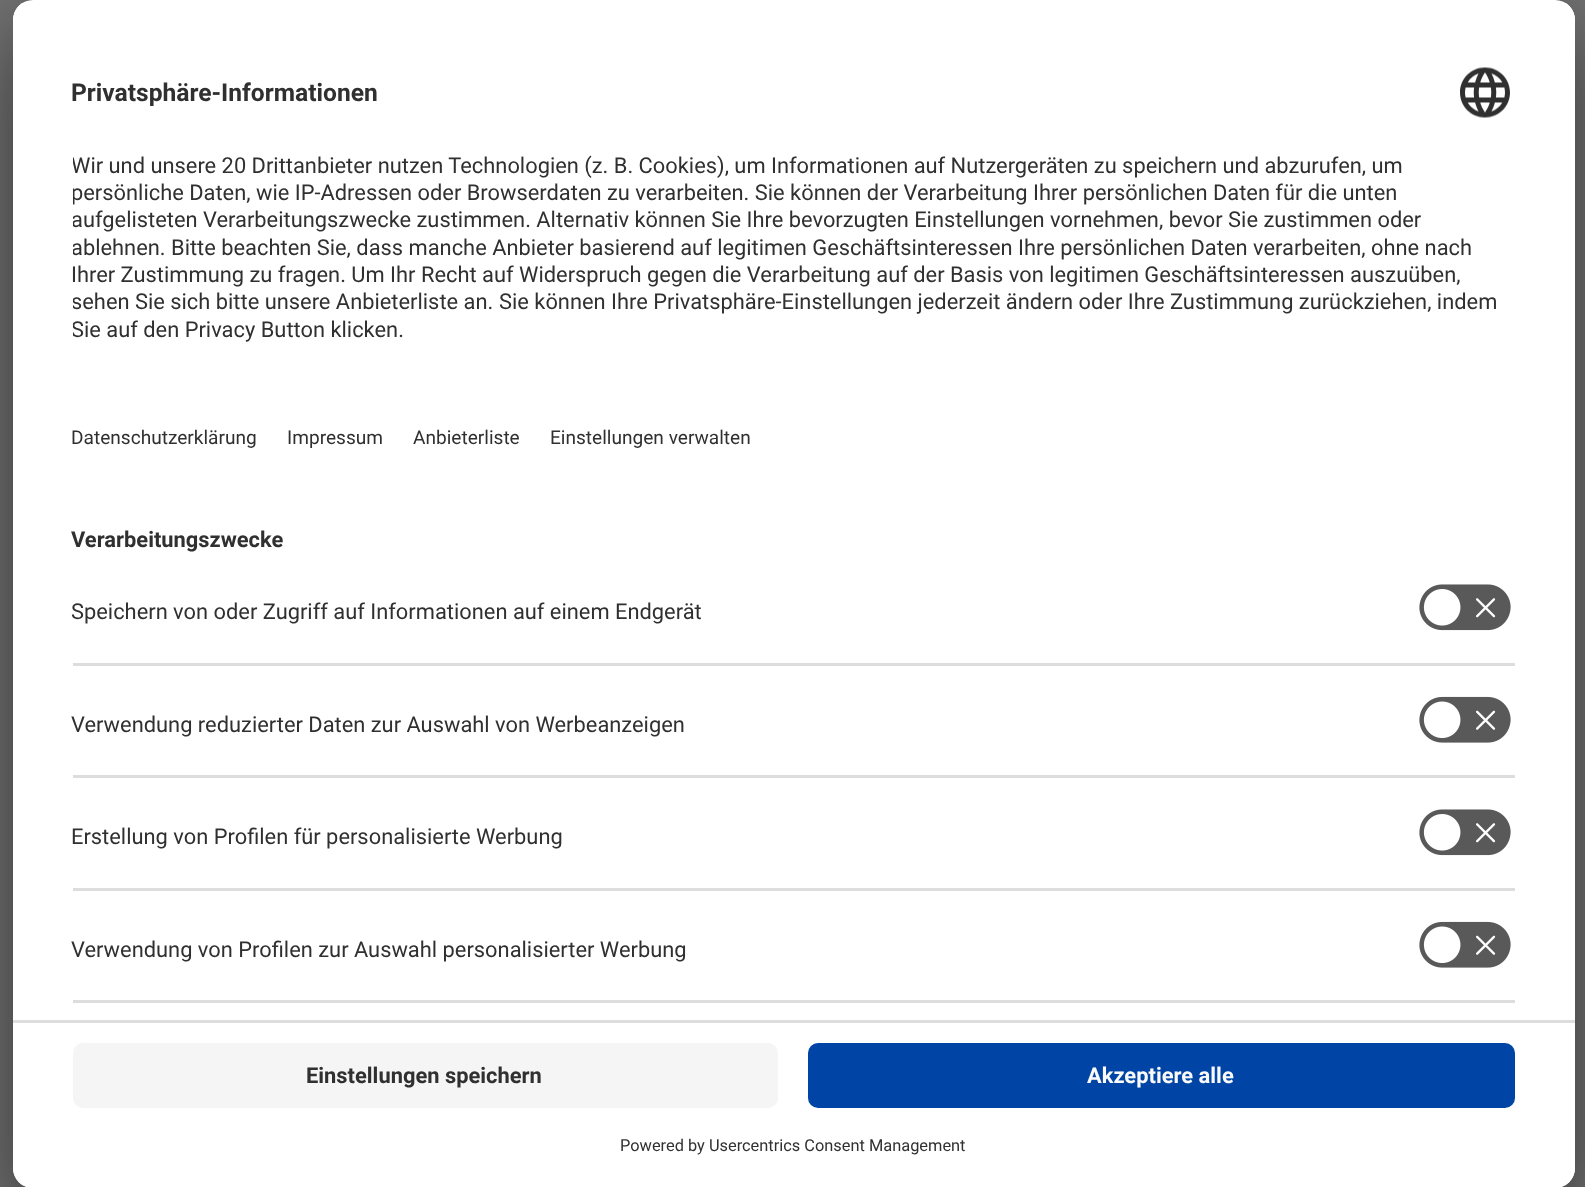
<svg xmlns="http://www.w3.org/2000/svg" width="1585" height="1187" viewBox="0 0 1585 1187">
  <defs>
    <clipPath id="clip1"><rect x="13" width="1562" height="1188" rx="20"/></clipPath>
    <clipPath id="clip2"><path d="M33 0H1555C1566 0 1575 9 1575 20V1020H13V20C13 9 22 0 33 0Z"/></clipPath>
    <clipPath id="clip3"><path d="M73 143h1442v212H73z"/></clipPath>
  </defs>
  <rect width="100%" height="100%" fill="#707070"/>
  <rect x="13" y="50" width="1562" height="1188" rx="20" fill="#0000004d" filter="blur(35px)"/>
  <rect x="13" y="13" width="1562" height="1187" rx="20" fill="#00000038" filter="blur(32.5px)"/>
  <rect x="13" width="1562" height="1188" rx="20" fill="#fff"/>
  <g clip-path="url(#clip1)">
    <g clip-path="url(#clip2)">
      <path d="M13 3h1562v1017H13z" fill="#fff"/>
      <path d="M13 3h1562v495H13z" fill="#fff"/>
    </g>
  </g>
  <image x="1460" y="67" width="50" height="51" href="img/1.png"/>
  <path d="M73 663h1442v3H73z" fill="#ddd"/>
  <image x="1419" y="584" width="92" height="47" href="img/2.png"/>
  <path d="M73 775h1442v3H73z" fill="#ddd"/>
  <image x="1419" y="696" width="92" height="47" href="img/3.png"/>
  <path d="M73 888h1442v3H73z" fill="#ddd"/>
  <image x="1419" y="809" width="92" height="47" href="img/2.png"/>
  <path d="M73 1000h1442v3H73z" fill="#ddd"/>
  <image x="1419" y="921" width="92" height="47" href="img/3.png"/>
  <path d="M13 1020H1575V1168C1575 1179 1566 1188 1555 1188H33C22 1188 13 1179 13 1168Z" fill="#fff"/>
  <path d="M13 1020h1562v3H13z" fill="#ddd"/>
  <rect x="73" y="1043" width="705" height="65" rx="10" fill="#f5f5f5"/>
  <rect x="808" y="1043" width="707" height="65" rx="10" fill="#0045a5"/>
  <text x="71" y="101" font-family="Roboto" font-size="24.6" font-weight="bold" fill="#303030">Privatsphäre-Informationen</text>
  <g clip-path="url(#clip3)">
    <g font-family="Roboto" font-size="21.88" fill="#303030">
      <text x="71" y="173">Wir und unsere 20 Drittanbieter nutzen Technologien (z. B. Cookies), um Informationen auf Nutzergeräten zu speichern und abzurufen, um</text>
      <text x="71" y="200">persönliche Daten, wie IP-Adressen oder Browserdaten zu verarbeiten. Sie können der Verarbeitung Ihrer persönlichen Daten für die unten</text>
      <text x="71" y="227">aufgelisteten Verarbeitungszwecke zustimmen. Alternativ können Sie Ihre bevorzugten Einstellungen vornehmen, bevor Sie zustimmen oder</text>
      <text x="71" y="255">ablehnen. Bitte beachten Sie, dass manche Anbieter basierend auf legitimen Geschäftsinteressen Ihre persönlichen Daten verarbeiten, ohne nach</text>
    </g>
  </g>
  <text x="71" y="282" font-family="Roboto" font-size="21.88" fill="#303030">Ihrer Zustimmung zu fragen. Um Ihr Recht auf Widerspruch gegen die Verarbeitung auf der Basis von legitimen Geschäftsinteressen auszuüben,</text>
  <g clip-path="url(#clip3)">
    <text x="71" y="309" font-family="Roboto" font-size="21.88" fill="#303030">sehen Sie sich bitte unsere Anbieterliste an.</text>
  </g>
  <text x="499" y="309" font-family="Roboto" font-size="21.88" fill="#303030">Sie können Ihre Privatsphäre-Einstellungen jederzeit ändern oder Ihre Zustimmung zurückziehen, indem</text>
  <g clip-path="url(#clip3)">
    <text x="71" y="337" font-family="Roboto" font-size="21.88" fill="#303030">Sie auf den Privacy Button klicken.</text>
  </g>
  <g font-family="Roboto" font-size="19.1" fill="#303030">
    <text x="71" y="444">Datenschutzerklärung</text>
    <text x="287" y="444">Impressum</text>
    <text x="413" y="444">Anbieterliste</text>
    <text x="550" y="444">Einstellungen verwalten</text>
  </g>
  <text x="71" y="547" font-family="Roboto" font-size="21.88" font-weight="bold" fill="#303030">Verarbeitungszwecke</text>
  <g font-family="Roboto" font-size="21.88" fill="#303030">
    <text x="71" y="619">Speichern von oder Zugriff auf Informationen auf einem Endgerät</text>
    <text x="71" y="732">Verwendung reduzierter Daten zur Auswahl von Werbeanzeigen</text>
    <text x="71" y="844">Erstellung von Profilen für personalisierte Werbung</text>
    <text x="71" y="957">Verwendung von Profilen zur Auswahl personalisierter Werbung</text>
  </g>
  <text x="306" y="1083" font-family="Roboto" font-size="21.88" font-weight="bold" fill="#303030">Einstellungen speichern</text>
  <text x="1087" y="1083" font-family="Roboto" font-size="21.88" font-weight="bold" fill="#fafafa">Akzeptiere alle</text>
  <text x="620" y="1151" font-family="Roboto" font-size="16.4" fill="#303030">Powered by Usercentrics Consent Management</text>
</svg>
